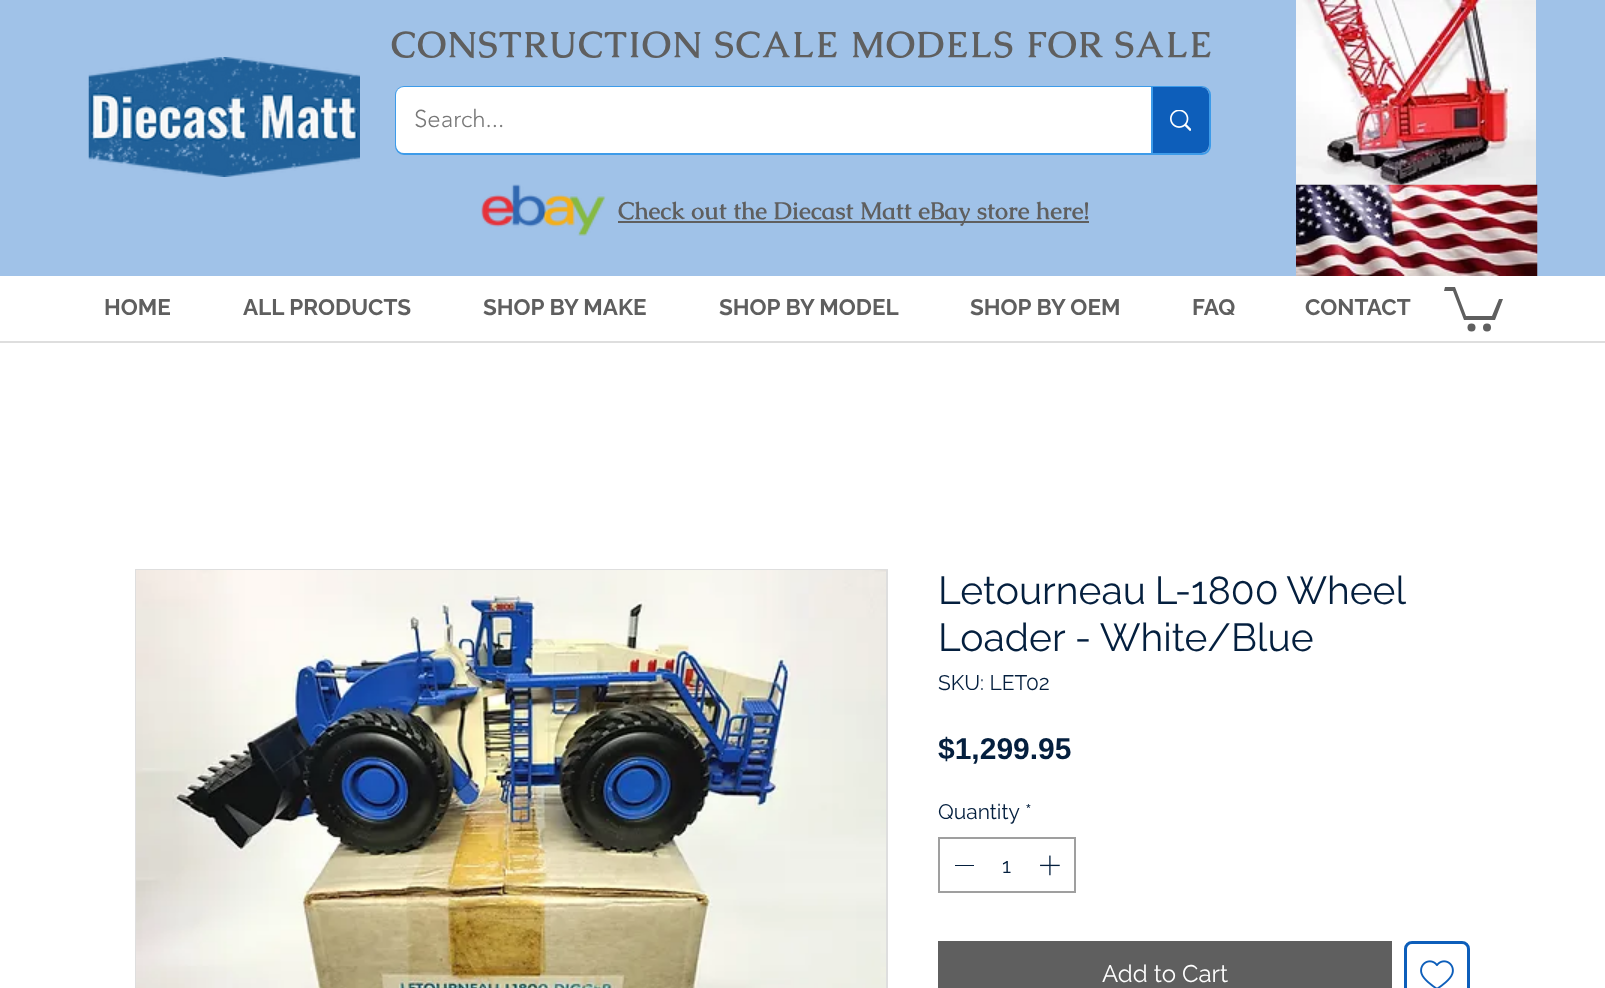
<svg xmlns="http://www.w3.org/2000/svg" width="1605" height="988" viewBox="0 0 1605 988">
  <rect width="100%" height="100%" fill="#fff"/>
  <path d="M0 0h1605v276H0z" fill="#a0c2e8"/>
  <rect x="396" y="87" width="814" height="67" rx="8" fill="none" stroke="#3d9be9" stroke-width="2"/>
  <rect x="396" y="87" width="813" height="66" rx="8" fill="#fff"/>
  <path d="M1151 87H1201C1205.5 87 1209 90.5 1209 95V145C1209 149.5 1205.5 153 1201 153H1151Z" fill="#0d5eba"/>
  <path d="M1151 87h2v66H1151z" fill="#3d9be9"/>
  <image x="1170" y="110" width="21" height="21" href="img/1.png"/>
  <image x="88" y="57" width="272" height="120" href="img/2.png"/>
  <image x="1296" y="0" width="240" height="185" href="img/3.png"/>
  <image x="481" y="184" width="125" height="52" href="img/4.png"/>
  <path d="M618 221h471v2H618z" fill="#5f5f5f"/>
  <image x="1296" y="184" width="242" height="92" href="img/5.png"/>
  <path d="M1503 299L1495 320H1464L1453 291H1444L1445 287H1455L1466 316H1492L1499 299" fill="#5f5f5f"/>
  <circle cx="1487" cy="327.5" r="4" fill="#5f5f5f"/>
  <circle cx="1471.5" cy="327.5" r="4" fill="#5f5f5f"/>
  <path d="M0 341h1605v2H0z" fill="#dedede"/>
  <path d="M136 570h751v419H136z" fill="none" stroke="#dedede" stroke-width="2"/>
  <image x="136" y="570" width="750" height="418" href="img/6.png"/>
  <path d="M939 838h136v54H939z" fill="none" stroke="#9f9f9f" stroke-width="2"/>
  <path d="M955 865h19v1H955z" fill="#041f3e"/>
  <image x="1040" y="855" width="20" height="21" href="img/7.png"/>
  <path d="M938 941h454v47H938z" fill="#5f5f5f"/>
  <rect x="1405.5" y="942.5" width="63" height="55" rx="6.5" fill="none" stroke="#0d5eba" stroke-width="3"/>
  <image x="1420" y="960" width="34" height="28" href="img/8.png"/>
  <text x="391" y="57" font-family="Caudex" font-size="36" font-weight="bold" letter-spacing="1.8" fill="#5f5f5f">CONSTRUCTION SCALE MODELS FOR SALE</text>
  <text x="414" y="127" font-family="'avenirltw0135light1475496'" font-size="24" font-weight="300" fill="#787878">Search...</text>
  <text x="618" y="219" font-family="Caudex" font-size="24" font-weight="bold" fill="#5f5f5f">Check out the Diecast Matt eBay store here!</text>
  <g font-family="Raleway" font-size="22.5" font-weight="bold" fill="#5f5f5f">
    <text x="104" y="315">HOME</text>
    <text x="243" y="315">ALL PRODUCTS</text>
    <text x="483" y="315">SHOP BY MAKE</text>
    <text x="719" y="315">SHOP BY MODEL</text>
    <text x="970" y="315">SHOP BY OEM</text>
    <text x="1192" y="315">FAQ</text>
    <text x="1305" y="315">CONTACT</text>
  </g>
  <g font-family="Raleway" font-size="39" fill="#041f3e">
    <text x="938" y="604" word-spacing="-1">Letourneau L-1800 Wheel</text>
    <text x="938" y="651">Loader - White/Blue</text>
  </g>
  <text x="938" y="690" font-family="Raleway" font-size="21" fill="#041f3e">SKU: LET02</text>
  <text x="938" y="759" font-family="Liberation Sans" font-size="30" font-weight="bold" fill="#041f3e">$1,299.95</text>
  <g font-family="Raleway" font-size="21" fill="#041f3e">
    <text x="938" y="819">Quantity</text>
    <text x="1025" y="819">*</text>
    <text x="1002" y="873">1</text>
  </g>
  <text x="1102" y="982" font-family="Raleway" font-size="24" fill="#fff">Add to Cart</text>
</svg>
